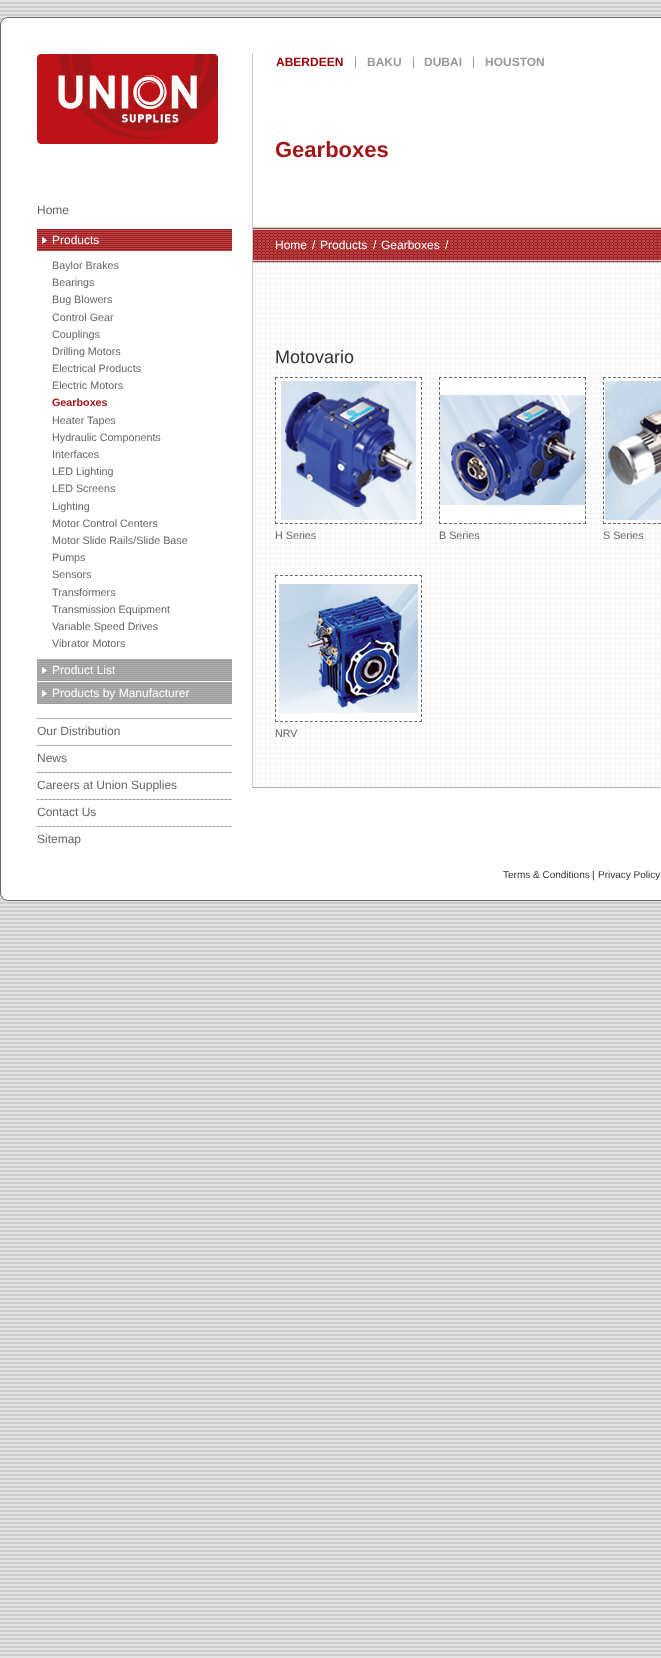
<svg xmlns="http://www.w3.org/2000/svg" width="661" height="1658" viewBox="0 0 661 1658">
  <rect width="100%" height="100%" fill="#e4e4e4"/>
  <image x="0" y="2" width="661" height="1654" href="img/1.png"/>
  <rect x="0.5" y="17.5" width="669" height="883" rx="7.5" fill="#fff" stroke="#676767"/>
  <image x="37" y="54" width="181" height="90" href="img/2.png"/>
  <image x="37" y="229" width="195" height="22" href="img/3.png"/>
  <image x="42" y="237" width="5" height="7" href="img/4.png"/>
  <image x="37" y="659" width="195" height="22" href="img/5.png"/>
  <image x="42" y="667" width="5" height="7" href="img/6.png"/>
  <image x="37" y="682" width="195" height="22" href="img/5.png"/>
  <image x="42" y="690" width="5" height="7" href="img/6.png"/>
  <image x="37" y="718" width="195" height="1" href="img/7.png"/>
  <image x="37" y="745" width="195" height="1" href="img/7.png"/>
  <image x="37" y="772" width="195" height="1" href="img/7.png"/>
  <image x="37" y="799" width="195" height="1" href="img/7.png"/>
  <image x="37" y="826" width="195" height="1" href="img/7.png"/>
  <image x="253" y="787" width="408" height="1" href="img/8.png"/>
  <path d="M252 53h1v735H252z" fill="#ccc"/>
  <path d="M355 57h1v11H355z" fill="#999"/>
  <path d="M413 57h1v11H413z" fill="#999"/>
  <path d="M473 57h1v11H473z" fill="#999"/>
  <image x="253" y="228" width="408" height="34" href="img/9.png"/>
  <path d="M253 227h408v1H253z" fill="#ccc"/>
  <path d="M253 229h408v1H253z" fill="#ccc"/>
  <path d="M253 260h408v1H253z" fill="#ccc"/>
  <path d="M253 262h408v1H253z" fill="#ccc"/>
  <image x="253" y="263" width="408" height="524" href="img/10.png"/>
  <path d="M275 377.5H422" fill="none" stroke="#676767" stroke-dasharray="3 1.97"/>
  <path d="M421.5 377V524" fill="none" stroke="#676767" stroke-dasharray="3 1.97"/>
  <path d="M275 523.5H422" fill="none" stroke="#676767" stroke-dasharray="3 1.97"/>
  <path d="M275.5 377V524" fill="none" stroke="#676767" stroke-dasharray="3 1.97"/>
  <image x="276" y="378" width="145" height="145" href="img/11.png"/>
  <path d="M439 377.5H586" fill="none" stroke="#676767" stroke-dasharray="3 1.97"/>
  <path d="M585.5 377V524" fill="none" stroke="#676767" stroke-dasharray="3 1.97"/>
  <path d="M439 523.5H586" fill="none" stroke="#676767" stroke-dasharray="3 1.97"/>
  <path d="M439.5 377V524" fill="none" stroke="#676767" stroke-dasharray="3 1.97"/>
  <image x="440" y="378" width="145" height="145" href="img/12.png"/>
  <path d="M603 377.5H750" fill="none" stroke="#676767" stroke-dasharray="3 1.97"/>
  <path d="M603 523.5H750" fill="none" stroke="#676767" stroke-dasharray="3 1.97"/>
  <path d="M603.5 377V524" fill="none" stroke="#676767" stroke-dasharray="3 1.97"/>
  <image x="604" y="378" width="57" height="145" href="img/13.png"/>
  <path d="M275 575.5H422" fill="none" stroke="#676767" stroke-dasharray="3 1.97"/>
  <path d="M421.5 575V722" fill="none" stroke="#676767" stroke-dasharray="3 1.97"/>
  <path d="M275 721.5H422" fill="none" stroke="#676767" stroke-dasharray="3 1.97"/>
  <path d="M275.5 575V722" fill="none" stroke="#676767" stroke-dasharray="3 1.97"/>
  <image x="276" y="576" width="145" height="145" href="img/14.png"/>
  <text x="37" y="214" font-family="Liberation Sans" font-size="12" fill="#666">Home</text>
  <text x="52" y="244" font-family="Liberation Sans" font-size="12" fill="#fff">Products</text>
  <g font-family="Liberation Sans" font-size="10.75" fill="#666">
    <text x="52" y="269">Baylor Brakes</text>
    <text x="52" y="286">Bearings</text>
    <text x="52" y="303">Bug Blowers</text>
    <text x="52" y="321">Control Gear</text>
    <text x="52" y="338">Couplings</text>
    <text x="52" y="355">Drilling Motors</text>
    <text x="52" y="372">Electrical Products</text>
    <text x="52" y="389">Electric Motors</text>
  </g>
  <text x="52" y="406" font-family="Liberation Sans" font-size="10.75" font-weight="bold" fill="#a21618">Gearboxes</text>
  <g font-family="Liberation Sans" font-size="10.75" fill="#666">
    <text x="52" y="424">Heater Tapes</text>
    <text x="52" y="441">Hydraulic Components</text>
    <text x="52" y="458">Interfaces</text>
    <text x="52" y="475">LED Lighting</text>
    <text x="52" y="492">LED Screens</text>
    <text x="52" y="510">Lighting</text>
    <text x="52" y="527">Motor Control Centers</text>
    <text x="52" y="544">Motor Slide Rails/Slide Base</text>
    <text x="52" y="561">Pumps</text>
    <text x="52" y="578">Sensors</text>
    <text x="52" y="596">Transformers</text>
    <text x="52" y="613">Transmission Equipment</text>
    <text x="52" y="630">Variable Speed Drives</text>
    <text x="52" y="647">Vibrator Motors</text>
  </g>
  <g font-family="Liberation Sans" font-size="12" fill="#fff">
    <text x="52" y="674">Product List</text>
    <text x="52" y="697">Products by Manufacturer</text>
  </g>
  <g font-family="Liberation Sans" font-size="12" fill="#666">
    <text x="37" y="735">Our Distribution</text>
    <text x="37" y="762">News</text>
    <text x="37" y="789">Careers at Union Supplies</text>
    <text x="37" y="816">Contact Us</text>
    <text x="37" y="843">Sitemap</text>
  </g>
  <text x="276" y="66" font-family="Liberation Sans" font-size="12" font-weight="bold" fill="#900">ABERDEEN</text>
  <g font-family="Liberation Sans" font-size="12" font-weight="bold" fill="#999">
    <text x="367" y="66">BAKU</text>
    <text x="424" y="66">DUBAI</text>
    <text x="485" y="66">HOUSTON</text>
  </g>
  <text x="275" y="157" font-family="Liberation Sans" font-size="22" font-weight="bold" fill="#a21618">Gearboxes</text>
  <g font-family="Liberation Sans" font-size="12" fill="#fff">
    <text x="275" y="249">Home</text>
    <text x="312" y="249">/</text>
    <text x="320" y="249">Products</text>
    <text x="373" y="249">/</text>
    <text x="381" y="249">Gearboxes</text>
    <text x="445" y="249">/</text>
  </g>
  <text x="275" y="363" font-family="Liberation Sans" font-size="18" fill="#333">Motovario</text>
  <g font-family="Liberation Sans" font-size="10.75" fill="#666">
    <text x="275" y="539">H Series</text>
    <text x="439" y="539">B Series</text>
    <text x="603" y="539">S Series</text>
    <text x="275" y="737">NRV</text>
  </g>
  <text x="503" y="878" font-family="Liberation Sans" font-size="10" fill="#333">Terms &amp; Conditions</text>
  <text x="592" y="878" font-family="Liberation Sans" font-size="10" fill="#222">|</text>
  <text x="598" y="878" font-family="Liberation Sans" font-size="10" fill="#333">Privacy Policy</text>
</svg>
